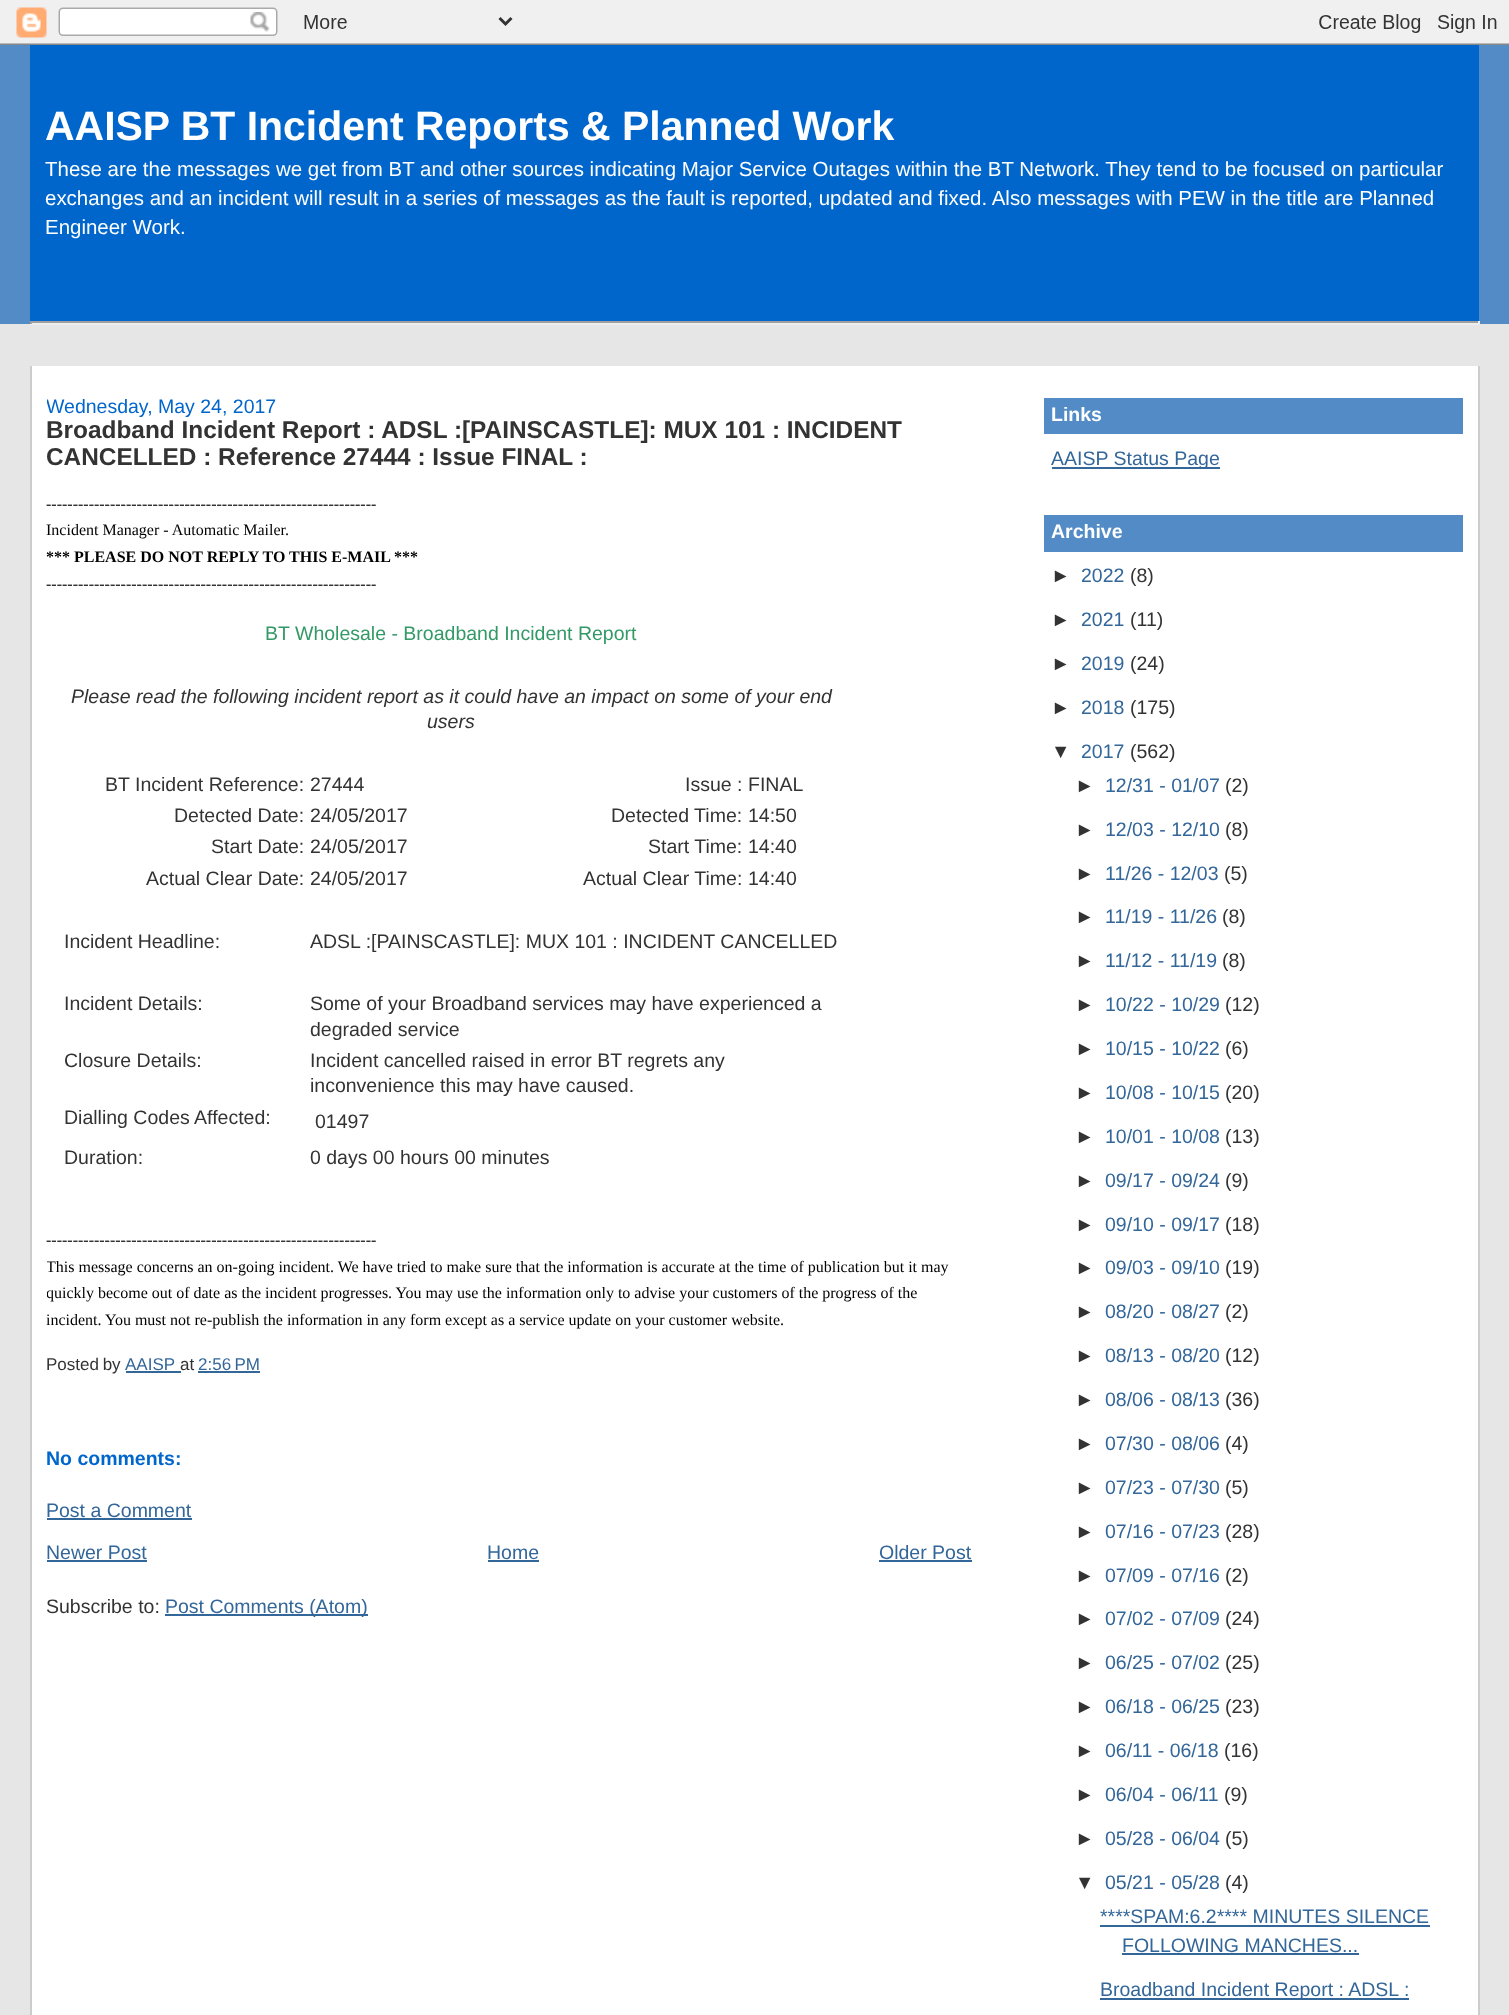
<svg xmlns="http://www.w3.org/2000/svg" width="1509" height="2015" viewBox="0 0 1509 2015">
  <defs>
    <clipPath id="clip1"><path d="M47 366h925v1266H47z"/></clipPath>
  </defs>
  <rect width="100%" height="100%" fill="#e6e6e6"/>
  <image x="0" y="0" width="1509" height="45" href="img/1.png"/>
  <path d="M0 45h1509v279H0z" fill="#528bc5"/>
  <path d="M30 45h1449v276H30z" fill="#06c"/>
  <path d="M30 321h1449v2H30z" fill="#9f9f9f"/>
  <path d="M1478 321h2v3H1478z" fill="#eee"/>
  <path d="M30 323h1449v2H30z" fill="#eee"/>
  <path d="M30 321h2v3H30z" fill="#9f9f9f"/>
  <path d="M32 366h1446v1649H32z" fill="#fff"/>
  <path d="M1478 366h2v1649H1478z" fill="#ccc"/>
  <path d="M30 366h2v1649H30z" fill="#ccc"/>
  <path d="M126 1371h55v2H126z" fill="#369"/>
  <path d="M198 1371h62v2H198z" fill="#369"/>
  <path d="M47 1518h145v2H47z" fill="#369"/>
  <path d="M47 1560h100v2H47z" fill="#369"/>
  <path d="M488 1560h51v2H488z" fill="#369"/>
  <path d="M879 1560h93v2H879z" fill="#369"/>
  <path d="M165 1614h203v2H165z" fill="#369"/>
  <path d="M1044 398h419v36H1044z" fill="#528bc5"/>
  <path d="M1052 467h168v2H1052z" fill="#369"/>
  <path d="M1044 515h419v37H1044z" fill="#528bc5"/>
  <path d="M1100 1925h330v2H1100z" fill="#369"/>
  <path d="M1122 1953h237v2H1122z" fill="#369"/>
  <path d="M1100 1998h309v2H1100z" fill="#369"/>
  <text x="45" y="140" font-family="Liberation Sans" font-size="40.95" font-weight="bold" fill="#fff">AAISP BT Incident Reports &amp; Planned Work</text>
  <g font-family="Liberation Sans" font-size="20.48" fill="#fff">
    <text x="45" y="176">These are the messages we get from BT and other sources indicating Major Service Outages within the BT Network. They tend to be focused on particular</text>
    <text x="45" y="205">exchanges and an incident will result in a series of messages as the fault is reported, updated and fixed. Also messages with PEW in the title are Planned</text>
    <text x="45" y="234">Engineer Work.</text>
  </g>
  <g clip-path="url(#clip1)">
    <text x="46" y="413" font-family="Liberation Sans" font-size="19.5" fill="#06c">Wednesday, May 24, 2017</text>
  </g>
  <g font-family="Liberation Sans" font-size="24.4" font-weight="bold" fill="#333">
    <text x="46" y="438">Broadband Incident Report : ADSL :[PAINSCASTLE]: MUX 101 : INCIDENT</text>
    <text x="46" y="465">CANCELLED : Reference 27444 : Issue FINAL :</text>
  </g>
  <g font-family="Liberation Serif" font-size="16" fill="#000">
    <text x="46" y="509">--------------------------------------------------------------</text>
    <text x="46" y="535">Incident Manager - Automatic Mailer.</text>
  </g>
  <text x="46" y="562" font-family="Liberation Serif" font-size="16" font-weight="bold" fill="#000">*** PLEASE DO NOT REPLY TO THIS E-MAIL ***</text>
  <text x="46" y="589" font-family="Liberation Serif" font-size="16" fill="#000">--------------------------------------------------------------</text>
  <text x="265" y="640" font-family="Liberation Sans" font-size="19.5" fill="#396">BT Wholesale - Broadband Incident Report</text>
  <g font-family="Liberation Sans" font-size="19.5" font-style="italic" fill="#333">
    <text x="71" y="703">Please read the following incident report as it could have an impact on some of your end</text>
    <text x="427" y="728">users</text>
  </g>
  <g font-family="Liberation Sans" font-size="19.5" fill="#333">
    <text x="105" y="791">BT Incident Reference:</text>
    <text x="310" y="791">27444</text>
    <text x="685" y="791">Issue :</text>
    <text x="748" y="791">FINAL</text>
    <text x="174" y="822">Detected Date:</text>
    <text x="310" y="822">24/05/2017</text>
    <text x="611" y="822">Detected Time:</text>
    <text x="748" y="822">14:50</text>
    <text x="211" y="853">Start Date:</text>
    <text x="310" y="853">24/05/2017</text>
    <text x="648" y="853">Start Time:</text>
    <text x="748" y="853">14:40</text>
    <text x="146" y="885">Actual Clear Date:</text>
    <text x="310" y="885">24/05/2017</text>
    <text x="583" y="885">Actual Clear Time:</text>
    <text x="748" y="885">14:40</text>
    <text x="64" y="948">Incident Headline:</text>
    <text x="310" y="948">ADSL :[PAINSCASTLE]: MUX 101 : INCIDENT CANCELLED</text>
    <text x="64" y="1010">Incident Details:</text>
    <text x="310" y="1010">Some of your Broadband services may have experienced a</text>
    <text x="310" y="1036">degraded service</text>
    <text x="64" y="1067">Closure Details:</text>
    <text x="310" y="1067">Incident cancelled raised in error BT regrets any</text>
    <text x="310" y="1092">inconvenience this may have caused.</text>
    <text x="64" y="1124">Dialling Codes Affected:</text>
    <text x="315" y="1128">01497</text>
    <text x="64" y="1164">Duration:</text>
    <text x="310" y="1164">0 days 00 hours 00 minutes</text>
  </g>
  <text x="46" y="1245" font-family="Liberation Serif" font-size="16" fill="#000">--------------------------------------------------------------</text>
  <g clip-path="url(#clip1)">
    <g font-family="Liberation Serif" font-size="16" fill="#000">
      <text x="46" y="1272">This message concerns an on-going incident. We have tried to make sure that the information is accurate at the time of publication but it may</text>
      <text x="46" y="1298">quickly become out of date as the incident progresses. You may use the information only to advise your customers of the progress of the</text>
    </g>
  </g>
  <text x="46" y="1325" font-family="Liberation Serif" font-size="16" fill="#000">incident. You must not re-publish the information in any form except as a service update on your customer website.</text>
  <text x="46" y="1370" word-spacing="-1" font-family="Liberation Sans" font-size="17" fill="#333">Posted by</text>
  <text x="125" y="1370" font-family="Liberation Sans" font-size="17" fill="#369">AAISP</text>
  <text x="180" y="1370" font-family="Liberation Sans" font-size="17" fill="#333">at</text>
  <text x="198" y="1370" font-family="Liberation Sans" font-size="17" fill="#369">2:56 PM</text>
  <text x="46" y="1465" font-family="Liberation Sans" font-size="19.5" font-weight="bold" fill="#06c">No comments:</text>
  <g font-family="Liberation Sans" font-size="19.5" fill="#369">
    <text x="46" y="1517">Post a Comment</text>
    <text x="46" y="1559">Newer Post</text>
    <text x="487" y="1559">Home</text>
    <text x="879" y="1559">Older Post</text>
  </g>
  <text x="46" y="1613" font-family="Liberation Sans" font-size="19.5" fill="#333">Subscribe to:</text>
  <text x="165" y="1613" font-family="Liberation Sans" font-size="19.5" fill="#369">Post Comments (Atom)</text>
  <text x="1051" y="421" font-family="Liberation Sans" font-size="19.5" font-weight="bold" fill="#fff">Links</text>
  <text x="1051" y="465" font-family="Liberation Sans" font-size="19.5" fill="#369">AAISP Status Page</text>
  <text x="1051" y="538" font-family="Liberation Sans" font-size="19.5" font-weight="bold" fill="#fff">Archive</text>
  <text x="1051" y="582" font-family="Liberation Sans" font-size="19.5" fill="#333">►</text>
  <text x="1081" y="582" font-family="Liberation Sans" font-size="19.5" fill="#369">2022</text>
  <g font-family="Liberation Sans" font-size="19.5" fill="#333">
    <text x="1130" y="582">(8)</text>
    <text x="1051" y="626">►</text>
  </g>
  <text x="1081" y="626" font-family="Liberation Sans" font-size="19.5" fill="#369">2021</text>
  <g font-family="Liberation Sans" font-size="19.5" fill="#333">
    <text x="1130" y="626">(11)</text>
    <text x="1051" y="670">►</text>
  </g>
  <text x="1081" y="670" font-family="Liberation Sans" font-size="19.5" fill="#369">2019</text>
  <g font-family="Liberation Sans" font-size="19.5" fill="#333">
    <text x="1130" y="670">(24)</text>
    <text x="1051" y="714">►</text>
  </g>
  <text x="1081" y="714" font-family="Liberation Sans" font-size="19.5" fill="#369">2018</text>
  <g font-family="Liberation Sans" font-size="19.5" fill="#333">
    <text x="1130" y="714">(175)</text>
    <text x="1051" y="758">▼</text>
  </g>
  <text x="1081" y="758" font-family="Liberation Sans" font-size="19.5" fill="#369">2017</text>
  <g font-family="Liberation Sans" font-size="19.5" fill="#333">
    <text x="1130" y="758">(562)</text>
    <text x="1075" y="792">►</text>
  </g>
  <text x="1105" y="792" font-family="Liberation Sans" font-size="19.5" fill="#369">12/31 - 01/07</text>
  <g font-family="Liberation Sans" font-size="19.5" fill="#333">
    <text x="1225" y="792">(2)</text>
    <text x="1075" y="836">►</text>
  </g>
  <text x="1105" y="836" font-family="Liberation Sans" font-size="19.5" fill="#369">12/03 - 12/10</text>
  <g font-family="Liberation Sans" font-size="19.5" fill="#333">
    <text x="1225" y="836">(8)</text>
    <text x="1075" y="880">►</text>
  </g>
  <text x="1105" y="880" font-family="Liberation Sans" font-size="19.5" fill="#369">11/26 - 12/03</text>
  <g font-family="Liberation Sans" font-size="19.5" fill="#333">
    <text x="1224" y="880">(5)</text>
    <text x="1075" y="923">►</text>
  </g>
  <text x="1105" y="923" font-family="Liberation Sans" font-size="19.5" fill="#369">11/19 - 11/26</text>
  <g font-family="Liberation Sans" font-size="19.5" fill="#333">
    <text x="1222" y="923">(8)</text>
    <text x="1075" y="967">►</text>
  </g>
  <text x="1105" y="967" font-family="Liberation Sans" font-size="19.5" fill="#369">11/12 - 11/19</text>
  <g font-family="Liberation Sans" font-size="19.5" fill="#333">
    <text x="1222" y="967">(8)</text>
    <text x="1075" y="1011">►</text>
  </g>
  <text x="1105" y="1011" font-family="Liberation Sans" font-size="19.5" fill="#369">10/22 - 10/29</text>
  <g font-family="Liberation Sans" font-size="19.5" fill="#333">
    <text x="1225" y="1011">(12)</text>
    <text x="1075" y="1055">►</text>
  </g>
  <text x="1105" y="1055" font-family="Liberation Sans" font-size="19.5" fill="#369">10/15 - 10/22</text>
  <g font-family="Liberation Sans" font-size="19.5" fill="#333">
    <text x="1225" y="1055">(6)</text>
    <text x="1075" y="1099">►</text>
  </g>
  <text x="1105" y="1099" font-family="Liberation Sans" font-size="19.5" fill="#369">10/08 - 10/15</text>
  <g font-family="Liberation Sans" font-size="19.5" fill="#333">
    <text x="1225" y="1099">(20)</text>
    <text x="1075" y="1143">►</text>
  </g>
  <text x="1105" y="1143" font-family="Liberation Sans" font-size="19.5" fill="#369">10/01 - 10/08</text>
  <g font-family="Liberation Sans" font-size="19.5" fill="#333">
    <text x="1225" y="1143">(13)</text>
    <text x="1075" y="1187">►</text>
  </g>
  <text x="1105" y="1187" font-family="Liberation Sans" font-size="19.5" fill="#369">09/17 - 09/24</text>
  <g font-family="Liberation Sans" font-size="19.5" fill="#333">
    <text x="1225" y="1187">(9)</text>
    <text x="1075" y="1231">►</text>
  </g>
  <text x="1105" y="1231" font-family="Liberation Sans" font-size="19.5" fill="#369">09/10 - 09/17</text>
  <g font-family="Liberation Sans" font-size="19.5" fill="#333">
    <text x="1225" y="1231">(18)</text>
    <text x="1075" y="1274">►</text>
  </g>
  <text x="1105" y="1274" font-family="Liberation Sans" font-size="19.5" fill="#369">09/03 - 09/10</text>
  <g font-family="Liberation Sans" font-size="19.5" fill="#333">
    <text x="1225" y="1274">(19)</text>
    <text x="1075" y="1318">►</text>
  </g>
  <text x="1105" y="1318" font-family="Liberation Sans" font-size="19.5" fill="#369">08/20 - 08/27</text>
  <g font-family="Liberation Sans" font-size="19.5" fill="#333">
    <text x="1225" y="1318">(2)</text>
    <text x="1075" y="1362">►</text>
  </g>
  <text x="1105" y="1362" font-family="Liberation Sans" font-size="19.5" fill="#369">08/13 - 08/20</text>
  <g font-family="Liberation Sans" font-size="19.5" fill="#333">
    <text x="1225" y="1362">(12)</text>
    <text x="1075" y="1406">►</text>
  </g>
  <text x="1105" y="1406" font-family="Liberation Sans" font-size="19.5" fill="#369">08/06 - 08/13</text>
  <g font-family="Liberation Sans" font-size="19.5" fill="#333">
    <text x="1225" y="1406">(36)</text>
    <text x="1075" y="1450">►</text>
  </g>
  <text x="1105" y="1450" font-family="Liberation Sans" font-size="19.5" fill="#369">07/30 - 08/06</text>
  <g font-family="Liberation Sans" font-size="19.5" fill="#333">
    <text x="1225" y="1450">(4)</text>
    <text x="1075" y="1494">►</text>
  </g>
  <text x="1105" y="1494" font-family="Liberation Sans" font-size="19.5" fill="#369">07/23 - 07/30</text>
  <g font-family="Liberation Sans" font-size="19.5" fill="#333">
    <text x="1225" y="1494">(5)</text>
    <text x="1075" y="1538">►</text>
  </g>
  <text x="1105" y="1538" font-family="Liberation Sans" font-size="19.5" fill="#369">07/16 - 07/23</text>
  <g font-family="Liberation Sans" font-size="19.5" fill="#333">
    <text x="1225" y="1538">(28)</text>
    <text x="1075" y="1582">►</text>
  </g>
  <text x="1105" y="1582" font-family="Liberation Sans" font-size="19.5" fill="#369">07/09 - 07/16</text>
  <g font-family="Liberation Sans" font-size="19.5" fill="#333">
    <text x="1225" y="1582">(2)</text>
    <text x="1075" y="1625">►</text>
  </g>
  <text x="1105" y="1625" font-family="Liberation Sans" font-size="19.5" fill="#369">07/02 - 07/09</text>
  <g font-family="Liberation Sans" font-size="19.5" fill="#333">
    <text x="1225" y="1625">(24)</text>
    <text x="1075" y="1669">►</text>
  </g>
  <text x="1105" y="1669" font-family="Liberation Sans" font-size="19.5" fill="#369">06/25 - 07/02</text>
  <g font-family="Liberation Sans" font-size="19.5" fill="#333">
    <text x="1225" y="1669">(25)</text>
    <text x="1075" y="1713">►</text>
  </g>
  <text x="1105" y="1713" font-family="Liberation Sans" font-size="19.5" fill="#369">06/18 - 06/25</text>
  <g font-family="Liberation Sans" font-size="19.5" fill="#333">
    <text x="1225" y="1713">(23)</text>
    <text x="1075" y="1757">►</text>
  </g>
  <text x="1105" y="1757" font-family="Liberation Sans" font-size="19.5" fill="#369">06/11 - 06/18</text>
  <g font-family="Liberation Sans" font-size="19.5" fill="#333">
    <text x="1224" y="1757">(16)</text>
    <text x="1075" y="1801">►</text>
  </g>
  <text x="1105" y="1801" font-family="Liberation Sans" font-size="19.5" fill="#369">06/04 - 06/11</text>
  <g font-family="Liberation Sans" font-size="19.5" fill="#333">
    <text x="1224" y="1801">(9)</text>
    <text x="1075" y="1845">►</text>
  </g>
  <text x="1105" y="1845" font-family="Liberation Sans" font-size="19.5" fill="#369">05/28 - 06/04</text>
  <g font-family="Liberation Sans" font-size="19.5" fill="#333">
    <text x="1225" y="1845">(5)</text>
    <text x="1075" y="1889">▼</text>
  </g>
  <text x="1105" y="1889" font-family="Liberation Sans" font-size="19.5" fill="#369">05/21 - 05/28</text>
  <text x="1225" y="1889" font-family="Liberation Sans" font-size="19.5" fill="#333">(4)</text>
  <g font-family="Liberation Sans" font-size="19.5" fill="#369">
    <text x="1100" y="1923">****SPAM:6.2**** MINUTES SILENCE</text>
    <text x="1122" y="1952">FOLLOWING MANCHES...</text>
    <text x="1100" y="1996">Broadband Incident Report : ADSL :</text>
  </g>
</svg>
